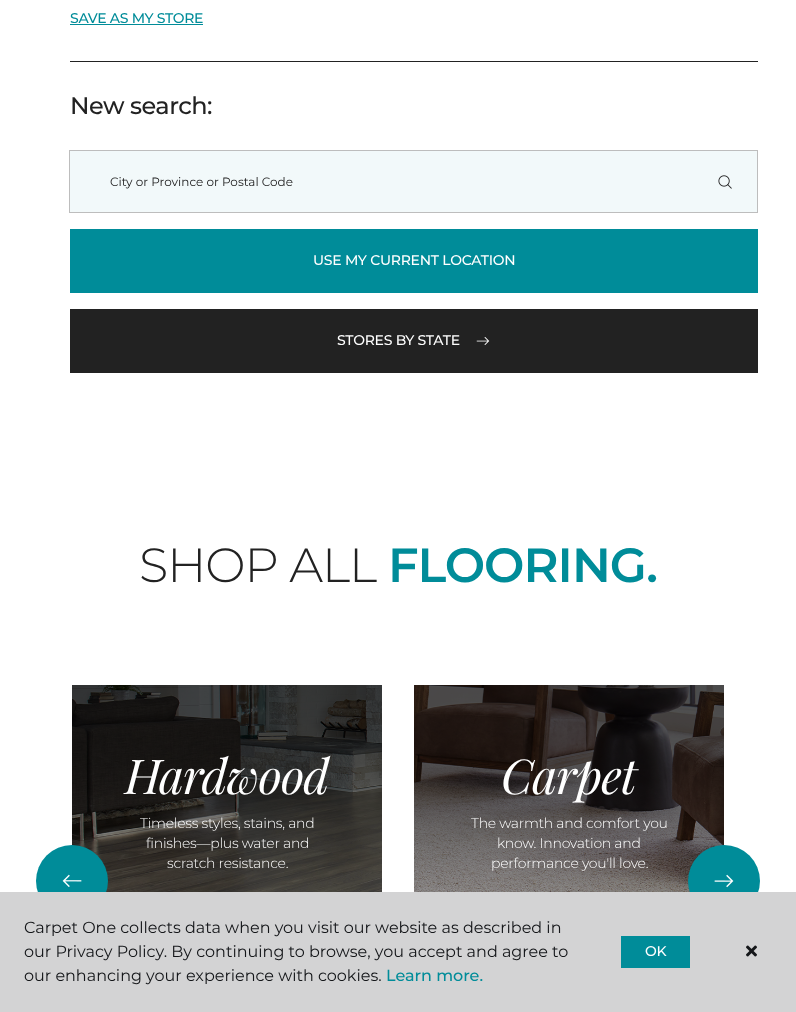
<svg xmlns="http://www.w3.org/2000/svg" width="796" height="1012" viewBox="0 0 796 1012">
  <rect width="100%" height="100%" fill="#fff"/>
  <path d="M70 24h133v1H70z" fill="#008c99"/>
  <path d="M70 61h688v1H70z" fill="#222"/>
  <path d="M70 151h687v61H70z" fill="#f2f9fa"/>
  <path d="M69 150h689v1H69z" fill="#bdbdbd"/>
  <path d="M757 150h1v63H757z" fill="#bdbdbd"/>
  <path d="M69 212h689v1H69z" fill="#bdbdbd"/>
  <image x="718" y="175" width="14" height="14" href="img/1.png"/>
  <path d="M69 150h1v63H69z" fill="#bdbdbd"/>
  <path d="M70 229h688v64H70z" fill="#008c99"/>
  <path d="M70 309h688v64H70z" fill="#222"/>
  <image x="476" y="337" width="14" height="8" href="img/2.png"/>
  <image x="72" y="685" width="310" height="207" href="img/3.png"/>
  <image x="414" y="685" width="310" height="207" href="img/4.png"/>
  <circle cx="72" cy="881" r="36" fill="#008c99"/>
  <image x="62" y="874" width="20" height="13" href="img/5.png"/>
  <circle cx="724" cy="881" r="36" fill="#008c99"/>
  <image x="714" y="874" width="20" height="14" href="img/6.png"/>
  <path d="M0 892h796v120H0z" fill="#d3d3d4"/>
  <path d="M621 936h69v32H621z" fill="#008c99"/>
  <image x="746" y="945" width="11" height="12" href="img/7.png"/>
  <text x="70" y="23" font-family="Montserrat" font-size="14" font-weight="500" letter-spacing="-0.3" fill="#008c99">SAVE AS MY STORE</text>
  <text x="70" y="114" font-family="Montserrat" font-size="24" font-weight="500" letter-spacing="-0.5" fill="#222">New search:</text>
  <text x="110" y="186" font-family="Montserrat" font-size="12" fill="#222">City or Province or Postal Code</text>
  <g font-family="Montserrat" font-size="14" font-weight="500" letter-spacing="-0.25" fill="#fff">
    <text x="313" y="265">USE MY CURRENT LOCATION</text>
    <text x="337" y="345">STORES BY STATE</text>
  </g>
  <text x="139" y="582" font-family="Montserrat" font-size="48" font-weight="300" letter-spacing="-1" fill="#222">SHOP ALL</text>
  <text x="388" y="582" font-family="Montserrat" font-size="48" font-weight="600" letter-spacing="-1" fill="#008c99">FLOORING.</text>
  <text x="125" y="794" font-family="Playfair Display" font-size="48" font-style="italic" letter-spacing="-1" fill="#fff">Hardwood</text>
  <g font-family="Montserrat" font-size="14" font-weight="300" letter-spacing="-0.25" fill="#fff">
    <text x="140" y="828">Timeless styles, stains, and</text>
    <text x="146" y="848">finishes—plus water and</text>
    <text x="167" y="868">scratch resistance.</text>
  </g>
  <text x="501" y="794" font-family="Playfair Display" font-size="48" font-style="italic" letter-spacing="-1" fill="#fff">Carpet</text>
  <g font-family="Montserrat" font-size="14" font-weight="300" letter-spacing="-0.25" fill="#fff">
    <text x="471" y="828">The warmth and comfort you</text>
    <text x="497" y="848">know. Innovation and</text>
    <text x="491" y="868">performance you'll love.</text>
  </g>
  <g font-family="Montserrat" font-size="16" fill="#141619">
    <text x="24" y="933">Carpet One collects data when you visit our website as described in</text>
    <text x="24" y="957">our Privacy Policy. By continuing to browse, you accept and agree to</text>
    <text x="24" y="981">our enhancing your experience with cookies.</text>
  </g>
  <text x="386" y="981" font-family="Montserrat" font-size="16" font-weight="500" fill="#008c99">Learn more.</text>
  <text x="645" y="956" font-family="Montserrat" font-size="14" font-weight="500" letter-spacing="-0.25" fill="#fff">OK</text>
</svg>
